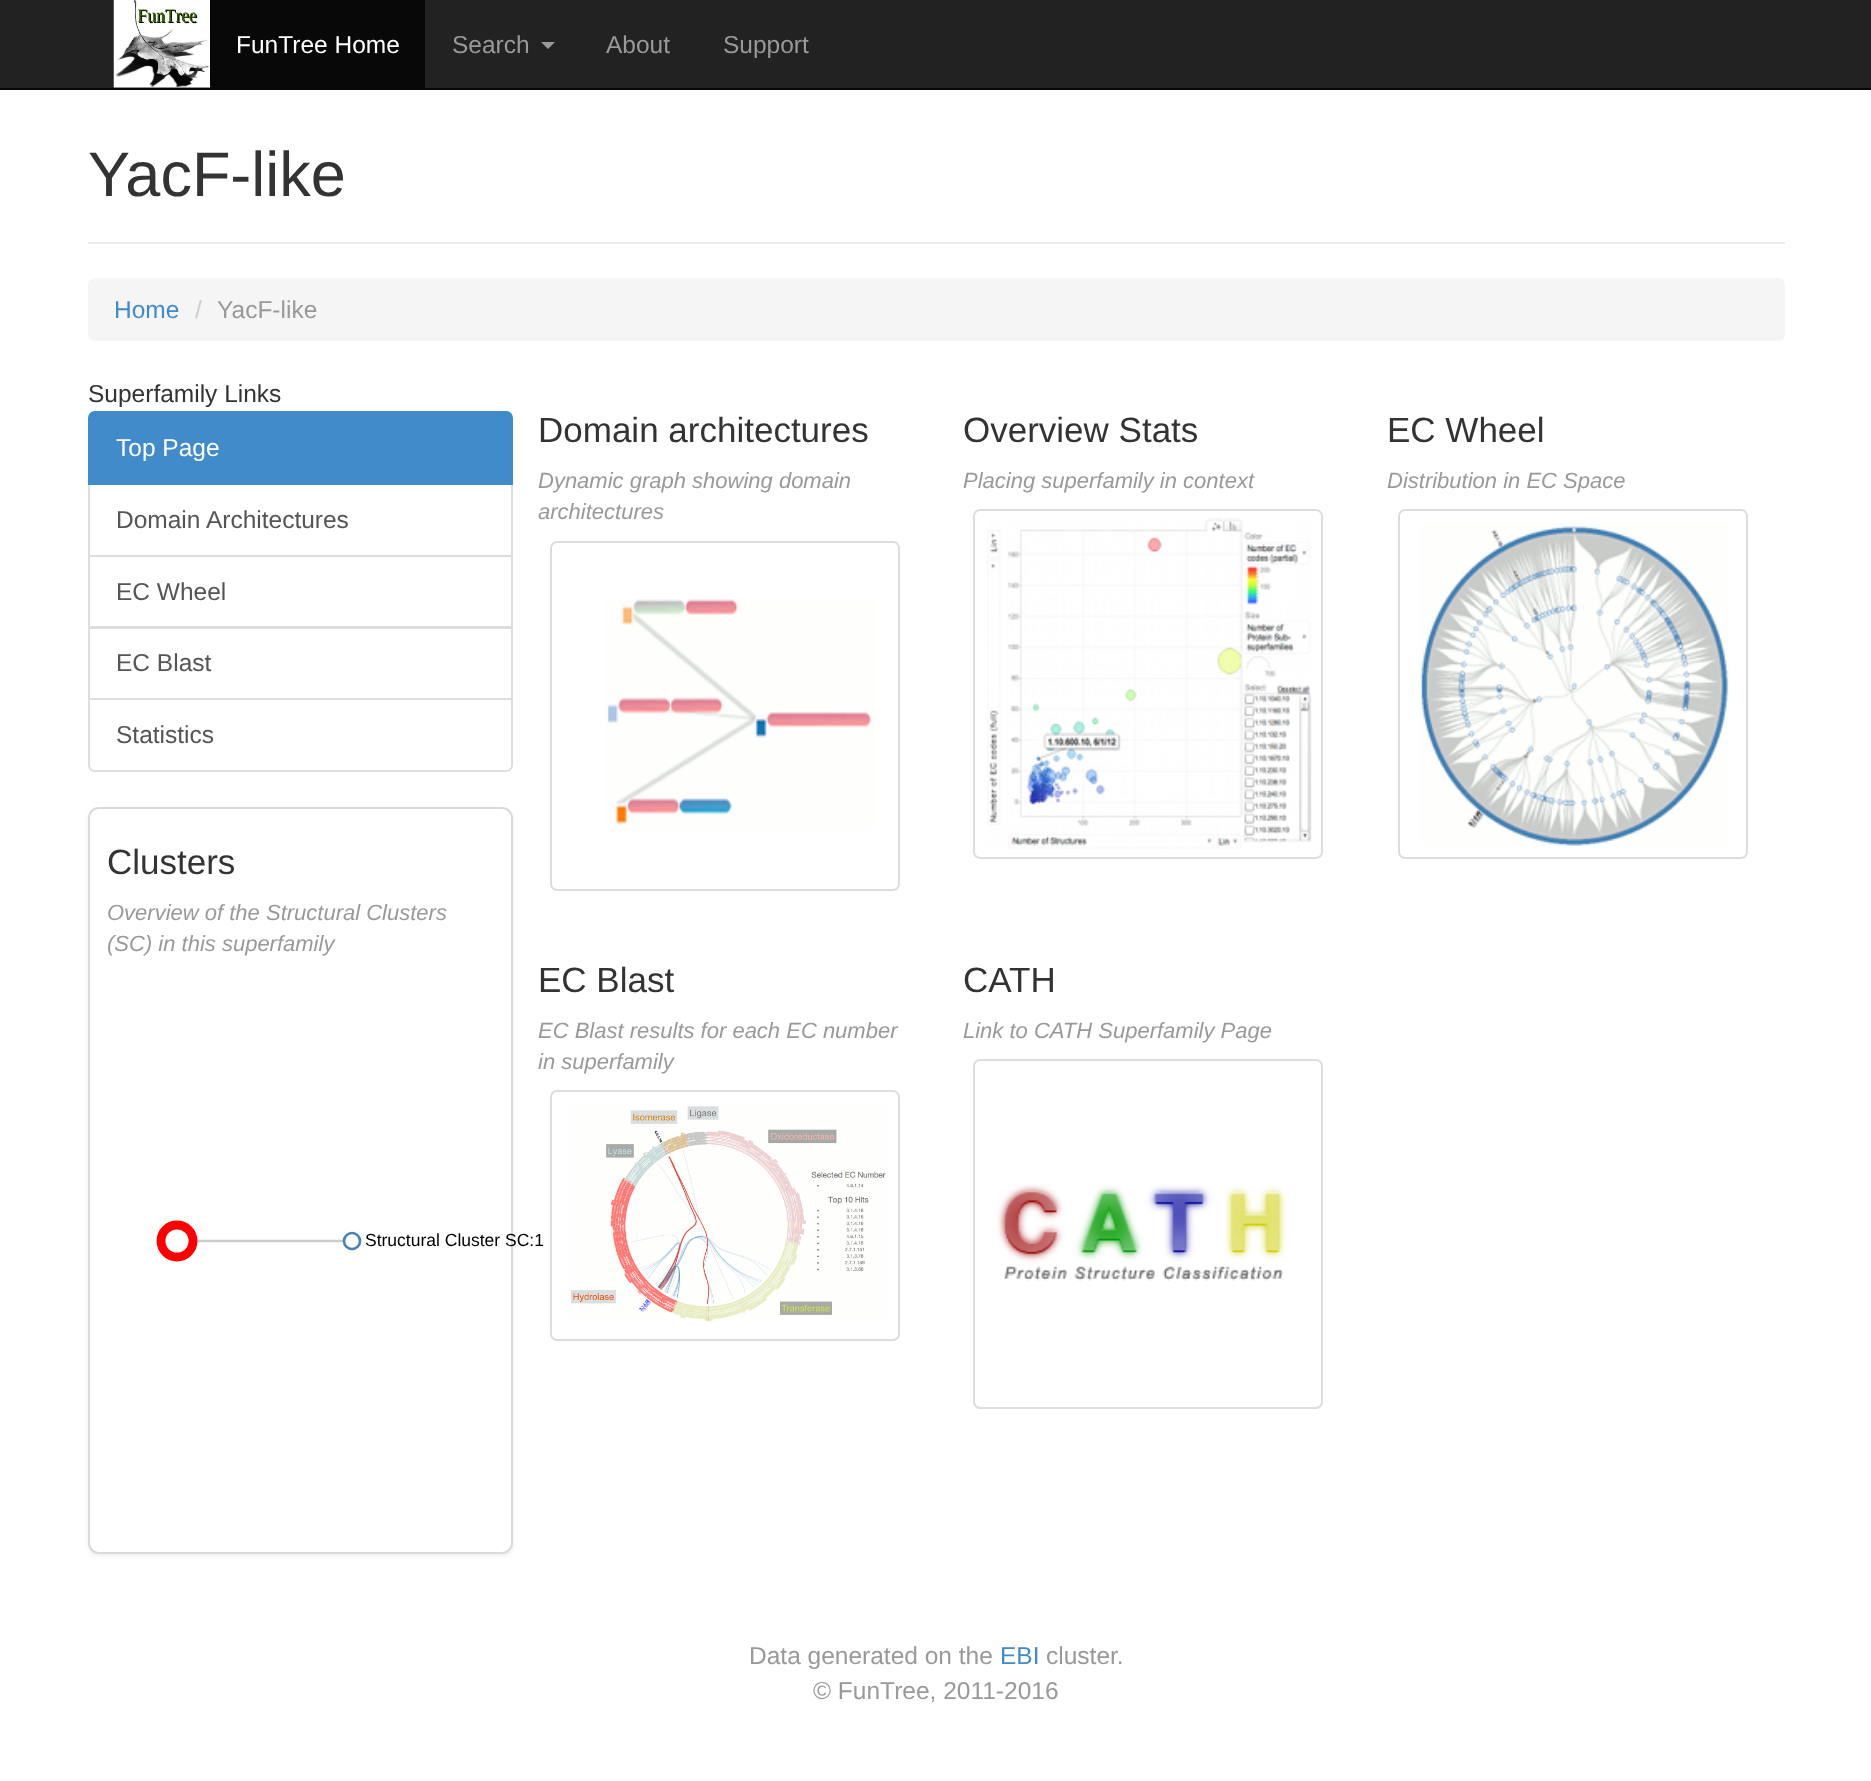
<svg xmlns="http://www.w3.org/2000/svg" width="1871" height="1781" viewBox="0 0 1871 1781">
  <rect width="100%" height="100%" fill="#fff"/>
  <path d="M0 0h1871v88H0z" fill="#222"/>
  <path d="M0 88h1871v2H0z" fill="#080808"/>
  <image x="113" y="0" width="97" height="88" href="img/1.png"/>
  <path d="M210 0h215v88H210z" fill="#080808"/>
  <path d="M541 42H555L548 49Z" fill="#999"/>
  <path d="M88 242h1697v2H88z" fill="#eee"/>
  <rect x="88" y="278" width="1697" height="63" rx="7" fill="#f5f5f5"/>
  <path d="M89 484h423v72H89z" fill="none" stroke="#ddd" stroke-width="2"/>
  <path d="M95 412H506C509.5 412 512 414.5 512 418V484H89V418C89 414.5 91.5 412 95 412Z" fill="#428bca" stroke="#428bca" stroke-width="2"/>
  <path d="M89 556h423v71H89z" fill="none" stroke="#ddd" stroke-width="2"/>
  <path d="M89 628h423v71H89z" fill="none" stroke="#ddd" stroke-width="2"/>
  <path d="M89 699H512V765C512 768.5 509.5 771 506 771H95C91.5 771 89 768.5 89 765Z" fill="#fff" stroke="#ddd" stroke-width="2"/>
  <rect x="88" y="809" width="425" height="747" rx="11" fill="#00000012" filter="blur(2px)"/>
  <rect x="89" y="808" width="423" height="745" rx="10" fill="#fff" stroke="#dadada" stroke-width="2"/>
  <path d="M177 1241H352" fill="none" stroke="#ccc" stroke-width="2.6"/>
  <circle cx="177" cy="1241" r="16" fill="#fff" stroke="#f00" stroke-width="8.8"/>
  <circle cx="352" cy="1241" r="8" fill="#fff" stroke="#4682b4" stroke-width="2.6"/>
  <rect x="551" y="542" width="348" height="348" rx="6" fill="none" stroke="#ddd" stroke-width="2"/>
  <image x="605" y="599" width="270" height="232" href="img/2.png"/>
  <rect x="974" y="510" width="348" height="348" rx="6" fill="none" stroke="#ddd" stroke-width="2"/>
  <image x="987" y="518" width="325" height="331" href="img/3.png"/>
  <rect x="1399" y="510" width="348" height="348" rx="6" fill="none" stroke="#ddd" stroke-width="2"/>
  <image x="1420" y="523" width="310" height="323" href="img/4.png"/>
  <rect x="551" y="1091" width="348" height="249" rx="6" fill="none" stroke="#ddd" stroke-width="2"/>
  <image x="570" y="1106" width="316" height="216" href="img/5.png"/>
  <rect x="974" y="1060" width="348" height="348" rx="6" fill="none" stroke="#ddd" stroke-width="2"/>
  <image x="997" y="1184" width="290" height="97" href="img/6.png"/>
  <text x="236" y="53" font-family="Liberation Sans" font-size="24.5" fill="#fff">FunTree Home</text>
  <g font-family="Liberation Sans" font-size="24.5" fill="#999">
    <text x="452" y="53">Search</text>
    <text x="606" y="53">About</text>
    <text x="723" y="53">Support</text>
  </g>
  <text x="88" y="196" font-family="Liberation Sans" font-size="63" fill="#333">YacF-like</text>
  <text x="114" y="318" font-family="Liberation Sans" font-size="24.5" fill="#428bca">Home</text>
  <text x="195" y="318" font-family="Liberation Sans" font-size="24.5" fill="#ccc">/</text>
  <text x="217" y="318" font-family="Liberation Sans" font-size="24.5" fill="#999">YacF-like</text>
  <text x="88" y="402" font-family="Liberation Sans" font-size="24.5" fill="#333">Superfamily Links</text>
  <text x="116" y="456" font-family="Liberation Sans" font-size="24.5" fill="#fff">Top Page</text>
  <g font-family="Liberation Sans" font-size="24.5" fill="#555">
    <text x="116" y="528">Domain Architectures</text>
    <text x="116" y="600">EC Wheel</text>
    <text x="116" y="671">EC Blast</text>
    <text x="116" y="743">Statistics</text>
  </g>
  <text x="107" y="874" font-family="Liberation Sans" font-size="35" fill="#333">Clusters</text>
  <g font-family="Liberation Sans" font-size="22" font-style="italic" fill="#999">
    <text x="107" y="920">Overview of the Structural Clusters</text>
    <text x="107" y="951">(SC) in this superfamily</text>
  </g>
  <text x="365" y="1246" font-family="Liberation Sans" font-size="17.5" fill="#000">Structural Cluster SC:1</text>
  <text x="538" y="442" font-family="Liberation Sans" font-size="35" fill="#333">Domain architectures</text>
  <g font-family="Liberation Sans" font-size="22" font-style="italic" fill="#999">
    <text x="538" y="488">Dynamic graph showing domain</text>
    <text x="538" y="519">architectures</text>
  </g>
  <text x="963" y="442" font-family="Liberation Sans" font-size="35" fill="#333">Overview Stats</text>
  <text x="963" y="488" font-family="Liberation Sans" font-size="22" font-style="italic" fill="#999">Placing superfamily in context</text>
  <text x="1387" y="442" font-family="Liberation Sans" font-size="35" fill="#333">EC Wheel</text>
  <text x="1387" y="488" font-family="Liberation Sans" font-size="22" font-style="italic" fill="#999">Distribution in EC Space</text>
  <text x="538" y="992" font-family="Liberation Sans" font-size="35" fill="#333">EC Blast</text>
  <g font-family="Liberation Sans" font-size="22" font-style="italic" fill="#999">
    <text x="538" y="1038">EC Blast results for each EC number</text>
    <text x="538" y="1069">in superfamily</text>
  </g>
  <text x="963" y="992" font-family="Liberation Sans" font-size="35" fill="#333">CATH</text>
  <text x="963" y="1038" font-family="Liberation Sans" font-size="22" font-style="italic" fill="#999">Link to CATH Superfamily Page</text>
  <text x="749" y="1664" font-family="Liberation Sans" font-size="24.5" fill="#999">Data generated on the</text>
  <text x="1000" y="1664" font-family="Liberation Sans" font-size="24.5" fill="#428bca">EBI</text>
  <g font-family="Liberation Sans" font-size="24.5" fill="#999">
    <text x="1046" y="1664">cluster.</text>
    <text x="813" y="1699">© FunTree, 2011-2016</text>
  </g>
</svg>
